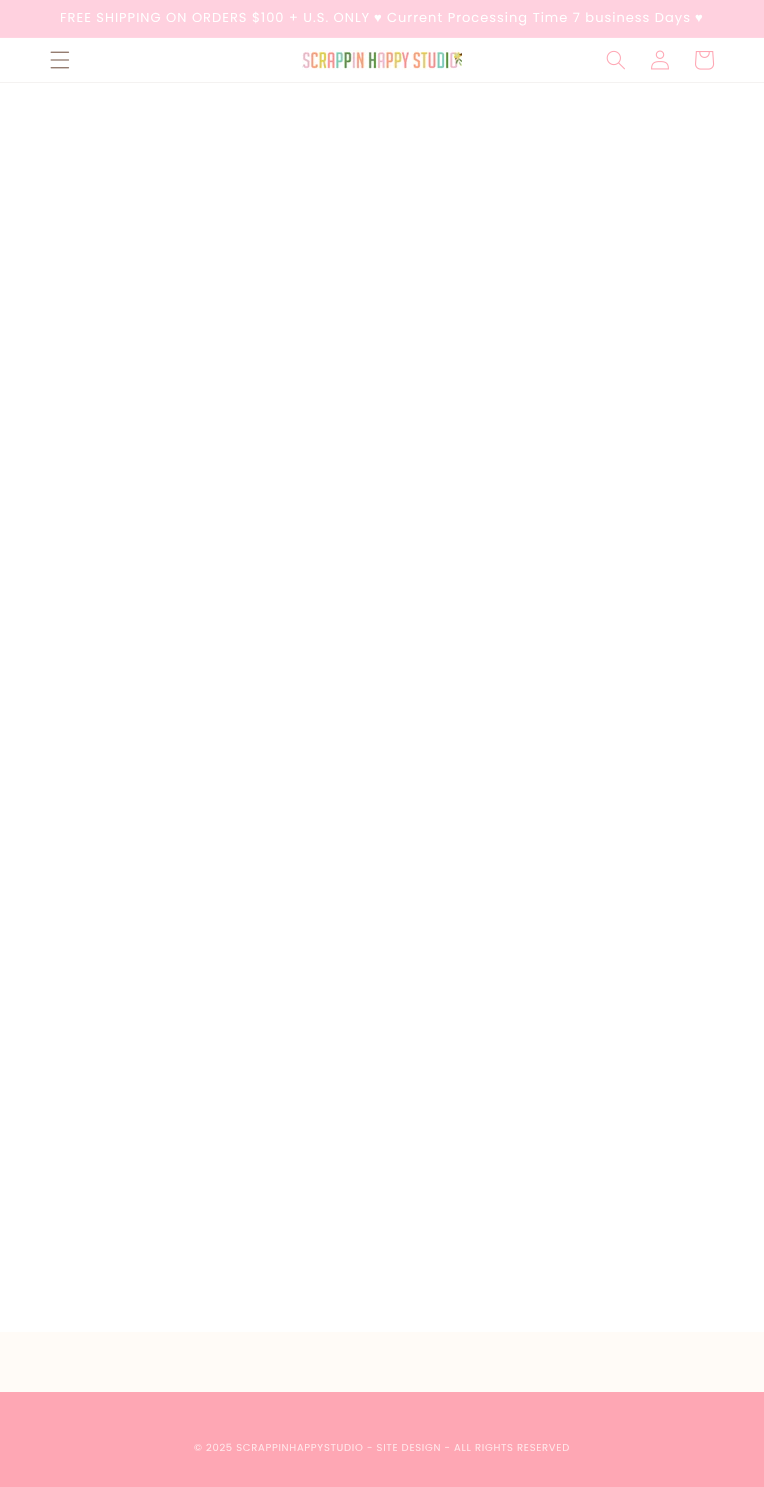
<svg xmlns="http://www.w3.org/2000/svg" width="764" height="1487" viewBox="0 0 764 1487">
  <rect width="100%" height="100%" fill="#fff"/>
  <path d="M0 0h764v37H0z" fill="#ffd1df"/>
  <path d="M0 37h764v1H0z" fill="#ffd5e2"/>
  <path d="M0 82h764v1H0z" fill="#f4f2f1"/>
  <image x="50" y="51" width="20" height="18" href="img/1.png"/>
  <image x="302" y="50" width="160" height="20" href="img/2.png"/>
  <image x="606" y="50" width="19" height="20" href="img/3.png"/>
  <image x="651" y="50" width="18" height="20" href="img/4.png"/>
  <image x="695" y="51" width="20" height="19" href="img/5.png"/>
  <path d="M0 1332h764v60H0z" fill="#fffbf7"/>
  <path d="M0 1392h764v95H0z" fill="#fea7b4"/>
  <text x="60" y="22" font-family="Poppins" font-size="13" letter-spacing="1" fill="#fff">FREE SHIPPING ON ORDERS $100 + U.S. ONLY</text>
  <text x="374" y="22" font-family="Liberation Sans" font-size="13" letter-spacing="1" fill="#fff">♥︎</text>
  <text x="387" y="22" font-family="Poppins" font-size="13" letter-spacing="1" fill="#fff">Current Processing Time 7 business Days</text>
  <text x="695" y="22" font-family="Liberation Sans" font-size="13" letter-spacing="1" fill="#fff">♥︎</text>
  <g font-family="Poppins" font-size="10" letter-spacing="0.7" fill="#ffe9ec">
    <text x="194" y="1451">© 2025 SCRAPPINHAPPYSTUDIO</text>
    <text x="367" y="1451">- SITE DESIGN - ALL RIGHTS RESERVED</text>
  </g>
</svg>
